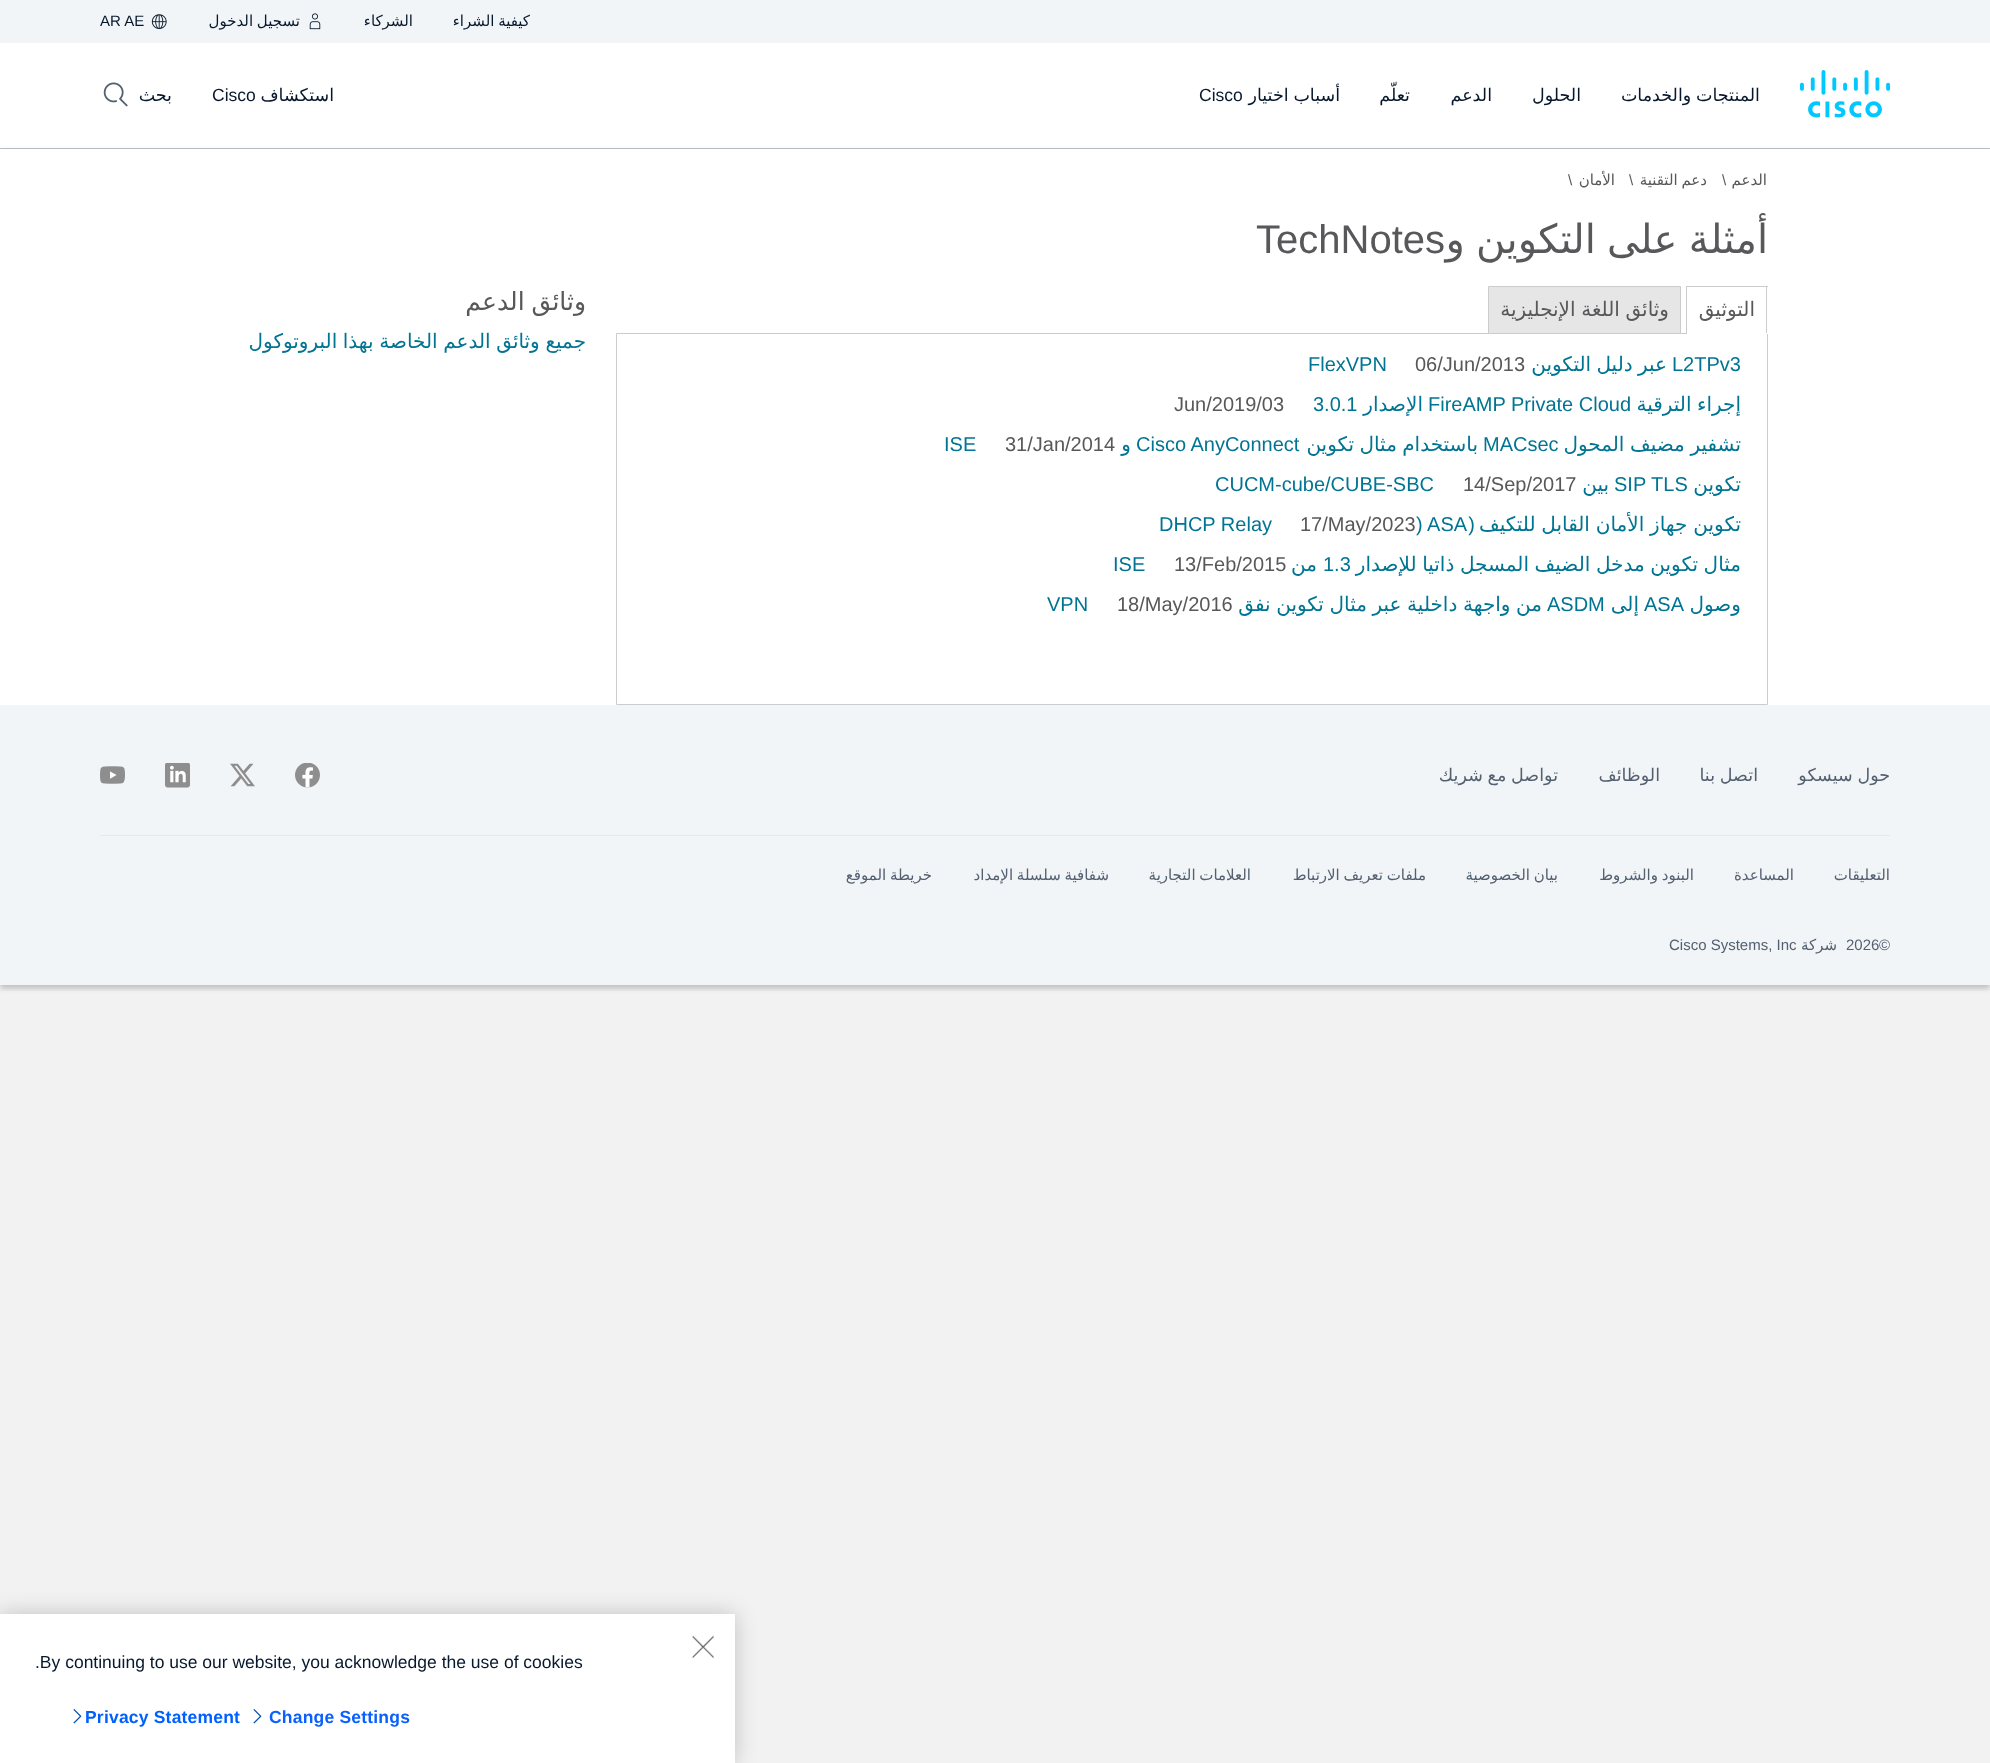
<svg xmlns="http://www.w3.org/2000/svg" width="1990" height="1763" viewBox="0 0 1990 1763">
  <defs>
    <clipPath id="clip1"><path d="M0 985h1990v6H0z"/></clipPath>
  </defs>
  <rect width="100%" height="100%" fill="#f2f2f2"/>
  <path d="M0 0h1990v43H0z" fill="#f2f5f7"/>
  <image x="309" y="13" width="12" height="17" href="img/1.png"/>
  <image x="151" y="14" width="16" height="15" href="img/2.png"/>
  <path d="M0 43h1990v105H0z" fill="#fff"/>
  <path d="M0 148h1990v1H0z" fill="#b9c1c9"/>
  <image x="1800" y="70" width="90" height="48" href="img/3.png"/>
  <image x="103" y="82" width="25" height="25" href="img/4.png"/>
  <path d="M0 151h1990v837H0z" fill="#0000001f" filter="blur(3px)"/>
  <path d="M0 149h1990v556H0z" fill="#fff"/>
  <path d="M1686 286h82v1H1686z" fill="#ccc"/>
  <path d="M0 705h1990v280H0z" fill="#f2f5f7"/>
  <g clip-path="url(#clip1)">
    <path d="M0 708h1990v280H0z" fill="#0000001f" filter="blur(3px)"/>
  </g>
  <path d="M616.5 333.5h1151v371H616.5z" fill="none" stroke="#ccc"/>
  <path d="M1766 286h1v48H1766z" fill="#ccc"/>
  <path d="M1686 333h82v1H1686z" fill="#fff"/>
  <path d="M1686 286h1v48H1686z" fill="#ccc"/>
  <path d="M1488.5 286.5h192v47H1488.5z" fill="#e6e6e6" stroke="#ccc"/>
  <image x="295" y="763" width="25" height="25" href="img/5.png"/>
  <image x="230" y="763" width="25" height="24" href="img/6.png"/>
  <image x="165" y="763" width="25" height="25" href="img/7.png"/>
  <image x="100" y="766" width="25" height="18" href="img/8.png"/>
  <path d="M100 835h1790v1H100z" fill="#e6e7e8"/>
  <path d="M0 1614h735v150H0z" fill="#00000033" filter="blur(11px)"/>
  <path d="M0 1614h735v149H0z" fill="#fff"/>
  <image x="692" y="1635" width="22" height="23" href="img/9.png"/>
  <image x="73" y="1709" width="9" height="15" href="img/10.png"/>
  <image x="253" y="1709" width="9" height="15" href="img/10.png"/>
  <g font-family="DejaVu Sans" font-size="15" direction="rtl" fill="#07182d">
    <text x="530" y="26" word-spacing="-1">كيفية الشراء</text>
    <text x="413" y="26">الشركاء</text>
    <text x="300" y="26" word-spacing="-1">تسجيل الدخول</text>
  </g>
  <text x="100" y="26" font-family="Liberation Sans" font-size="15" fill="#07182d">AR AE</text>
  <g font-family="DejaVu Sans" font-size="17.5" direction="rtl" fill="#07182d">
    <text x="1760" y="101" word-spacing="-0.75">المنتجات والخدمات</text>
    <text x="1581" y="101">الحلول</text>
    <text x="1492" y="101">الدعم</text>
    <text x="1410" y="101">تعلّم</text>
    <text x="1340" y="101" word-spacing="-0.75">أسباب اختيار</text>
  </g>
  <text x="1199" y="101" font-family="Liberation Sans" font-size="17.5" fill="#07182d">Cisco</text>
  <text x="334" y="101" font-family="DejaVu Sans" font-size="17.5" direction="rtl" fill="#07182d">استكشاف</text>
  <text x="212" y="101" font-family="Liberation Sans" font-size="17.5" fill="#07182d">Cisco</text>
  <text x="172" y="101" font-family="DejaVu Sans" font-size="17.5" direction="rtl" fill="#07182d">بحث</text>
  <text x="1767" y="185" font-family="DejaVu Sans" font-size="15" direction="rtl" fill="#58585b">الدعم</text>
  <text x="1722" y="185" font-family="Liberation Sans" font-size="15" fill="#58585b">\</text>
  <text x="1707" y="185" word-spacing="-1" font-family="DejaVu Sans" font-size="15" direction="rtl" fill="#58585b">دعم التقنية</text>
  <text x="1629" y="185" font-family="Liberation Sans" font-size="15" fill="#58585b">\</text>
  <text x="1615" y="185" font-family="DejaVu Sans" font-size="15" direction="rtl" fill="#58585b">الأمان</text>
  <text x="1568" y="185" font-family="Liberation Sans" font-size="15" fill="#58585b">\</text>
  <text x="1256" y="253" font-family="Liberation Sans" font-size="40" fill="#58585b">TechNotes</text>
  <text x="1768" y="253" word-spacing="-1.5" font-family="DejaVu Sans" font-size="40" direction="rtl" fill="#58585b">أمثلة على التكوين و</text>
  <g font-family="DejaVu Sans" font-size="20" direction="rtl" fill="#58585b">
    <text x="1755" y="316">التوثيق</text>
    <text x="1669" y="316" word-spacing="-0.75">وثائق اللغة الإنجليزية</text>
  </g>
  <text x="1672" y="371" font-family="Liberation Sans" font-size="20" fill="#007493">L2TPv3</text>
  <text x="1667" y="371" word-spacing="-1" font-family="DejaVu Sans" font-size="20" direction="rtl" fill="#007493">عبر دليل التكوين</text>
  <text x="1415" y="371" font-family="Liberation Sans" font-size="20" fill="#58585b">06/Jun/2013</text>
  <text x="1308" y="371" font-family="Liberation Sans" font-size="20" fill="#007493">FlexVPN</text>
  <text x="1741" y="411" word-spacing="-0.75" font-family="DejaVu Sans" font-size="20" direction="rtl" fill="#007493">إجراء الترقية</text>
  <text x="1428" y="411" font-family="Liberation Sans" font-size="20" fill="#007493">FireAMP Private Cloud</text>
  <text x="1423" y="411" font-family="DejaVu Sans" font-size="20" direction="rtl" fill="#007493">الإصدار</text>
  <text x="1313" y="411" font-family="Liberation Sans" font-size="20" fill="#007493">3.0.1</text>
  <text x="1174" y="411" font-family="Liberation Sans" font-size="20" fill="#58585b">Jun/2019/03</text>
  <text x="1741" y="451" word-spacing="-0.75" font-family="DejaVu Sans" font-size="20" direction="rtl" fill="#007493">تشفير مضيف المحول</text>
  <text x="1483" y="451" font-family="Liberation Sans" font-size="20" fill="#007493">MACsec</text>
  <text x="1478" y="451" word-spacing="-1" font-family="DejaVu Sans" font-size="20" direction="rtl" fill="#007493">باستخدام مثال تكوين</text>
  <text x="1136" y="451" font-family="Liberation Sans" font-size="20" fill="#007493">Cisco AnyConnect</text>
  <text x="1131" y="451" font-family="DejaVu Sans" font-size="20" direction="rtl" fill="#007493">و</text>
  <text x="1005" y="451" font-family="Liberation Sans" font-size="20" fill="#58585b">31/Jan/2014</text>
  <text x="944" y="451" font-family="Liberation Sans" font-size="20" fill="#007493">ISE</text>
  <text x="1741" y="491" font-family="DejaVu Sans" font-size="20" direction="rtl" fill="#007493">تكوين</text>
  <text x="1614" y="491" font-family="Liberation Sans" font-size="20" fill="#007493">SIP TLS</text>
  <text x="1609" y="491" font-family="DejaVu Sans" font-size="20" direction="rtl" fill="#007493">بين</text>
  <text x="1463" y="491" font-family="Liberation Sans" font-size="20" fill="#58585b">14/Sep/2017</text>
  <text x="1215" y="491" font-family="Liberation Sans" font-size="20" fill="#007493">CUCM-cube/CUBE-SBC</text>
  <text x="1741" y="531" word-spacing="-0.5" font-family="DejaVu Sans" font-size="20" direction="rtl" fill="#007493">تكوين جهاز الأمان القابل للتكيف</text>
  <text x="1475" y="531" font-family="Liberation Sans" font-size="20" direction="rtl" fill="#007493">(</text>
  <text x="1416" y="531" font-family="Liberation Sans" font-size="20" fill="#007493">) ASA</text>
  <text x="1300" y="531" font-family="Liberation Sans" font-size="20" fill="#58585b">17/May/2023</text>
  <text x="1159" y="531" font-family="Liberation Sans" font-size="20" fill="#007493">DHCP Relay</text>
  <text x="1741" y="571" word-spacing="-0.75" font-family="DejaVu Sans" font-size="20" direction="rtl" fill="#007493">مثال تكوين مدخل الضيف المسجل ذاتيا للإصدار</text>
  <text x="1323" y="571" font-family="Liberation Sans" font-size="20" fill="#007493">1.3</text>
  <text x="1317" y="571" font-family="DejaVu Sans" font-size="20" direction="rtl" fill="#007493">من</text>
  <text x="1174" y="571" font-family="Liberation Sans" font-size="20" fill="#58585b">13/Feb/2015</text>
  <text x="1113" y="571" font-family="Liberation Sans" font-size="20" fill="#007493">ISE</text>
  <text x="1741" y="611" font-family="DejaVu Sans" font-size="20" direction="rtl" fill="#007493">وصول</text>
  <text x="1644" y="611" font-family="Liberation Sans" font-size="20" fill="#007493">ASA</text>
  <text x="1639" y="611" font-family="DejaVu Sans" font-size="20" direction="rtl" fill="#007493">إلى</text>
  <text x="1547" y="611" font-family="Liberation Sans" font-size="20" fill="#007493">ASDM</text>
  <text x="1542" y="611" word-spacing="-0.75" font-family="DejaVu Sans" font-size="20" direction="rtl" fill="#007493">من واجهة داخلية عبر مثال تكوين نفق</text>
  <text x="1117" y="611" font-family="Liberation Sans" font-size="20" fill="#58585b">18/May/2016</text>
  <text x="1047" y="611" font-family="Liberation Sans" font-size="20" fill="#007493">VPN</text>
  <text x="586" y="310" word-spacing="-1" font-family="DejaVu Sans" font-size="25" direction="rtl" fill="#58585b">وثائق الدعم</text>
  <text x="586" y="348" word-spacing="-0.75" font-family="DejaVu Sans" font-size="20" direction="rtl" fill="#007493">جميع وثائق الدعم الخاصة بهذا البروتوكول</text>
  <g font-family="DejaVu Sans" font-size="17.5" direction="rtl" fill="#536070">
    <text x="1890" y="781" word-spacing="-0.75">حول سيسكو</text>
    <text x="1758" y="781" word-spacing="-0.75">اتصل بنا</text>
    <text x="1660" y="781">الوظائف</text>
    <text x="1558" y="781" word-spacing="-0.75">تواصل مع شريك</text>
  </g>
  <g font-family="DejaVu Sans" font-size="15" direction="rtl" fill="#536070">
    <text x="1890" y="880">التعليقات</text>
    <text x="1794" y="880">المساعدة</text>
    <text x="1694" y="880" word-spacing="-1">البنود والشروط</text>
    <text x="1558" y="880" word-spacing="-1">بيان الخصوصية</text>
    <text x="1426" y="880" word-spacing="-1">ملفات تعريف الارتباط</text>
    <text x="1251" y="880" word-spacing="-1">العلامات التجارية</text>
    <text x="1109" y="880" word-spacing="-1">شفافية سلسلة الإمداد</text>
    <text x="932" y="880" word-spacing="-1">خريطة الموقع</text>
  </g>
  <g font-family="Liberation Sans" font-size="15" fill="#536070">
    <text x="1879" y="950">©</text>
    <text x="1846" y="950">2026</text>
  </g>
  <text x="1837" y="950" font-family="DejaVu Sans" font-size="15" direction="rtl" fill="#536070">شركة</text>
  <text x="1669" y="950" font-family="Liberation Sans" font-size="15" fill="#536070">Cisco Systems, Inc</text>
  <text x="35" y="1668" font-family="Liberation Sans" font-size="17.5" fill="#07182d">.By continuing to use our website, you acknowledge the use of cookies</text>
  <text x="269" y="1723" font-family="Liberation Sans" font-size="17.5" font-weight="bold" letter-spacing="0.2" fill="#0a60ff">Change Settings</text>
  <text x="85" y="1723" font-family="Liberation Sans" font-size="17.5" font-weight="bold" letter-spacing="0.2" fill="#0060ff">Privacy Statement</text>
</svg>
